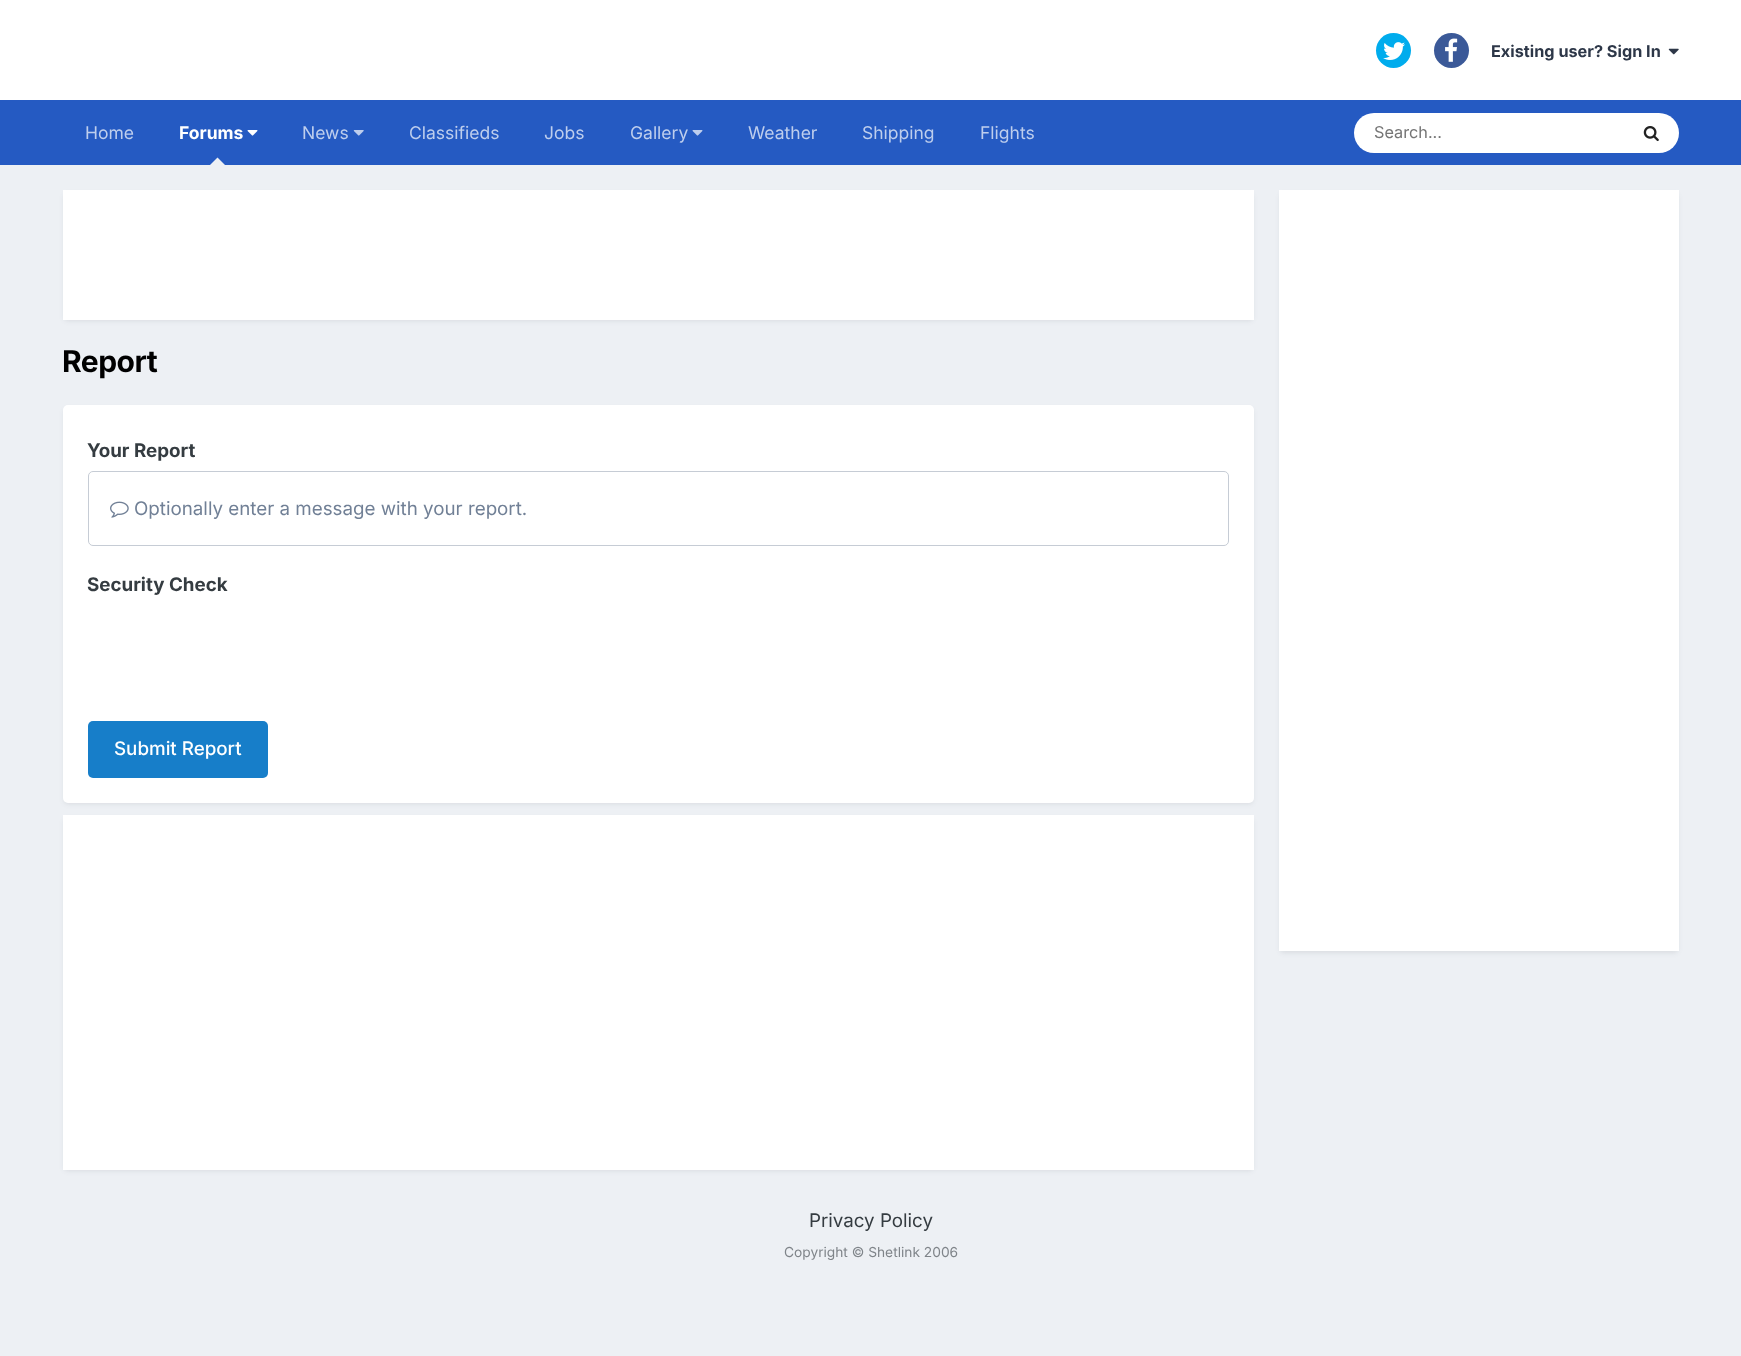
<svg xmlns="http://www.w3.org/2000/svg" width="1741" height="1356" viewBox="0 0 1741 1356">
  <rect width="100%" height="100%" fill="#edf0f4"/>
  <path d="M0 0h1741v100H0z" fill="#fff"/>
  <circle cx="1393.5" cy="50.5" r="17.5" fill="#00aced"/>
  <image x="1383" y="42" width="22" height="18" href="img/1.png"/>
  <circle cx="1451.5" cy="50.5" r="17.5" fill="#3b5998"/>
  <image x="1445" y="38" width="13" height="24" href="img/2.png"/>
  <image x="1668" y="48" width="11" height="7" href="img/3.png"/>
  <path d="M0 100h1741v65H0z" fill="#255ac2"/>
  <image x="247" y="130" width="11" height="6" href="img/4.png"/>
  <path d="M225 165H210L217.5 157.5Z" fill="#edf0f4"/>
  <image x="353" y="130" width="11" height="6" href="img/5.png"/>
  <image x="692" y="130" width="11" height="6" href="img/6.png"/>
  <rect x="1354" y="113" width="325" height="40" rx="20" fill="#fff"/>
  <image x="1643" y="126" width="16" height="16" href="img/7.png"/>
  <rect x="64" y="194" width="1189" height="127" rx="4" fill="#2d37481a" filter="blur(2.5px)"/>
  <path d="M63 190h1191v130H63z" fill="#fff"/>
  <rect x="64" y="409" width="1189" height="395" rx="4" fill="#2d37481a" filter="blur(2.5px)"/>
  <rect x="63" y="405" width="1191" height="398" rx="5" fill="#fff"/>
  <rect x="88.5" y="471.5" width="1140" height="74" rx="4.5" fill="none" stroke="#c6ccd5"/>
  <image x="110" y="501" width="19" height="17" href="img/8.png"/>
  <rect x="88" y="721" width="180" height="57" rx="5" fill="#177ec9"/>
  <rect x="64" y="819" width="1189" height="352" rx="4" fill="#2d37481a" filter="blur(2.5px)"/>
  <path d="M63 815h1191v355H63z" fill="#fff"/>
  <rect x="1280" y="194" width="398" height="759" rx="4" fill="#2d37481a" filter="blur(2.5px)"/>
  <path d="M1279 190h400v761H1279z" fill="#fff"/>
  <text x="1491" y="57" font-family="Inter" font-size="16.25" font-weight="bold" fill="#2d3748">Existing user? Sign In</text>
  <text x="85" y="139" font-family="Inter" font-size="17.5" fill="#beceed">Home</text>
  <text x="179" y="139" font-family="Inter" font-size="17.5" font-weight="bold" fill="#fff">Forums</text>
  <g font-family="Inter" font-size="17.5" fill="#beceed">
    <text x="302" y="139">News</text>
    <text x="409" y="139">Classifieds</text>
    <text x="544" y="139">Jobs</text>
    <text x="630" y="139">Gallery</text>
    <text x="748" y="139">Weather</text>
    <text x="862" y="139">Shipping</text>
    <text x="980" y="139">Flights</text>
  </g>
  <text x="1374" y="138" font-family="Inter" font-size="16.25" fill="#757575">Search...</text>
  <text x="62" y="372" font-family="Inter" font-size="30" font-weight="bold" letter-spacing="-0.5" fill="#000">Report</text>
  <text x="87" y="457" font-family="Inter" font-size="18.75" font-weight="bold" fill="#353c41">Your Report</text>
  <text x="134" y="515" font-family="Inter" font-size="18.75" fill="#718096">Optionally enter a message with your report.</text>
  <text x="87" y="591" font-family="Inter" font-size="18.75" font-weight="bold" fill="#353c41">Security Check</text>
  <text x="114" y="755" font-family="Inter" font-size="18.75" font-weight="500" fill="#fff">Submit Report</text>
  <text x="809" y="1227" font-family="Inter" font-size="18.75" fill="#353c41">Privacy Policy</text>
  <text x="784" y="1257" font-family="Inter" font-size="13.75" fill="#7f8489">Copyright © Shetlink 2006</text>
</svg>
